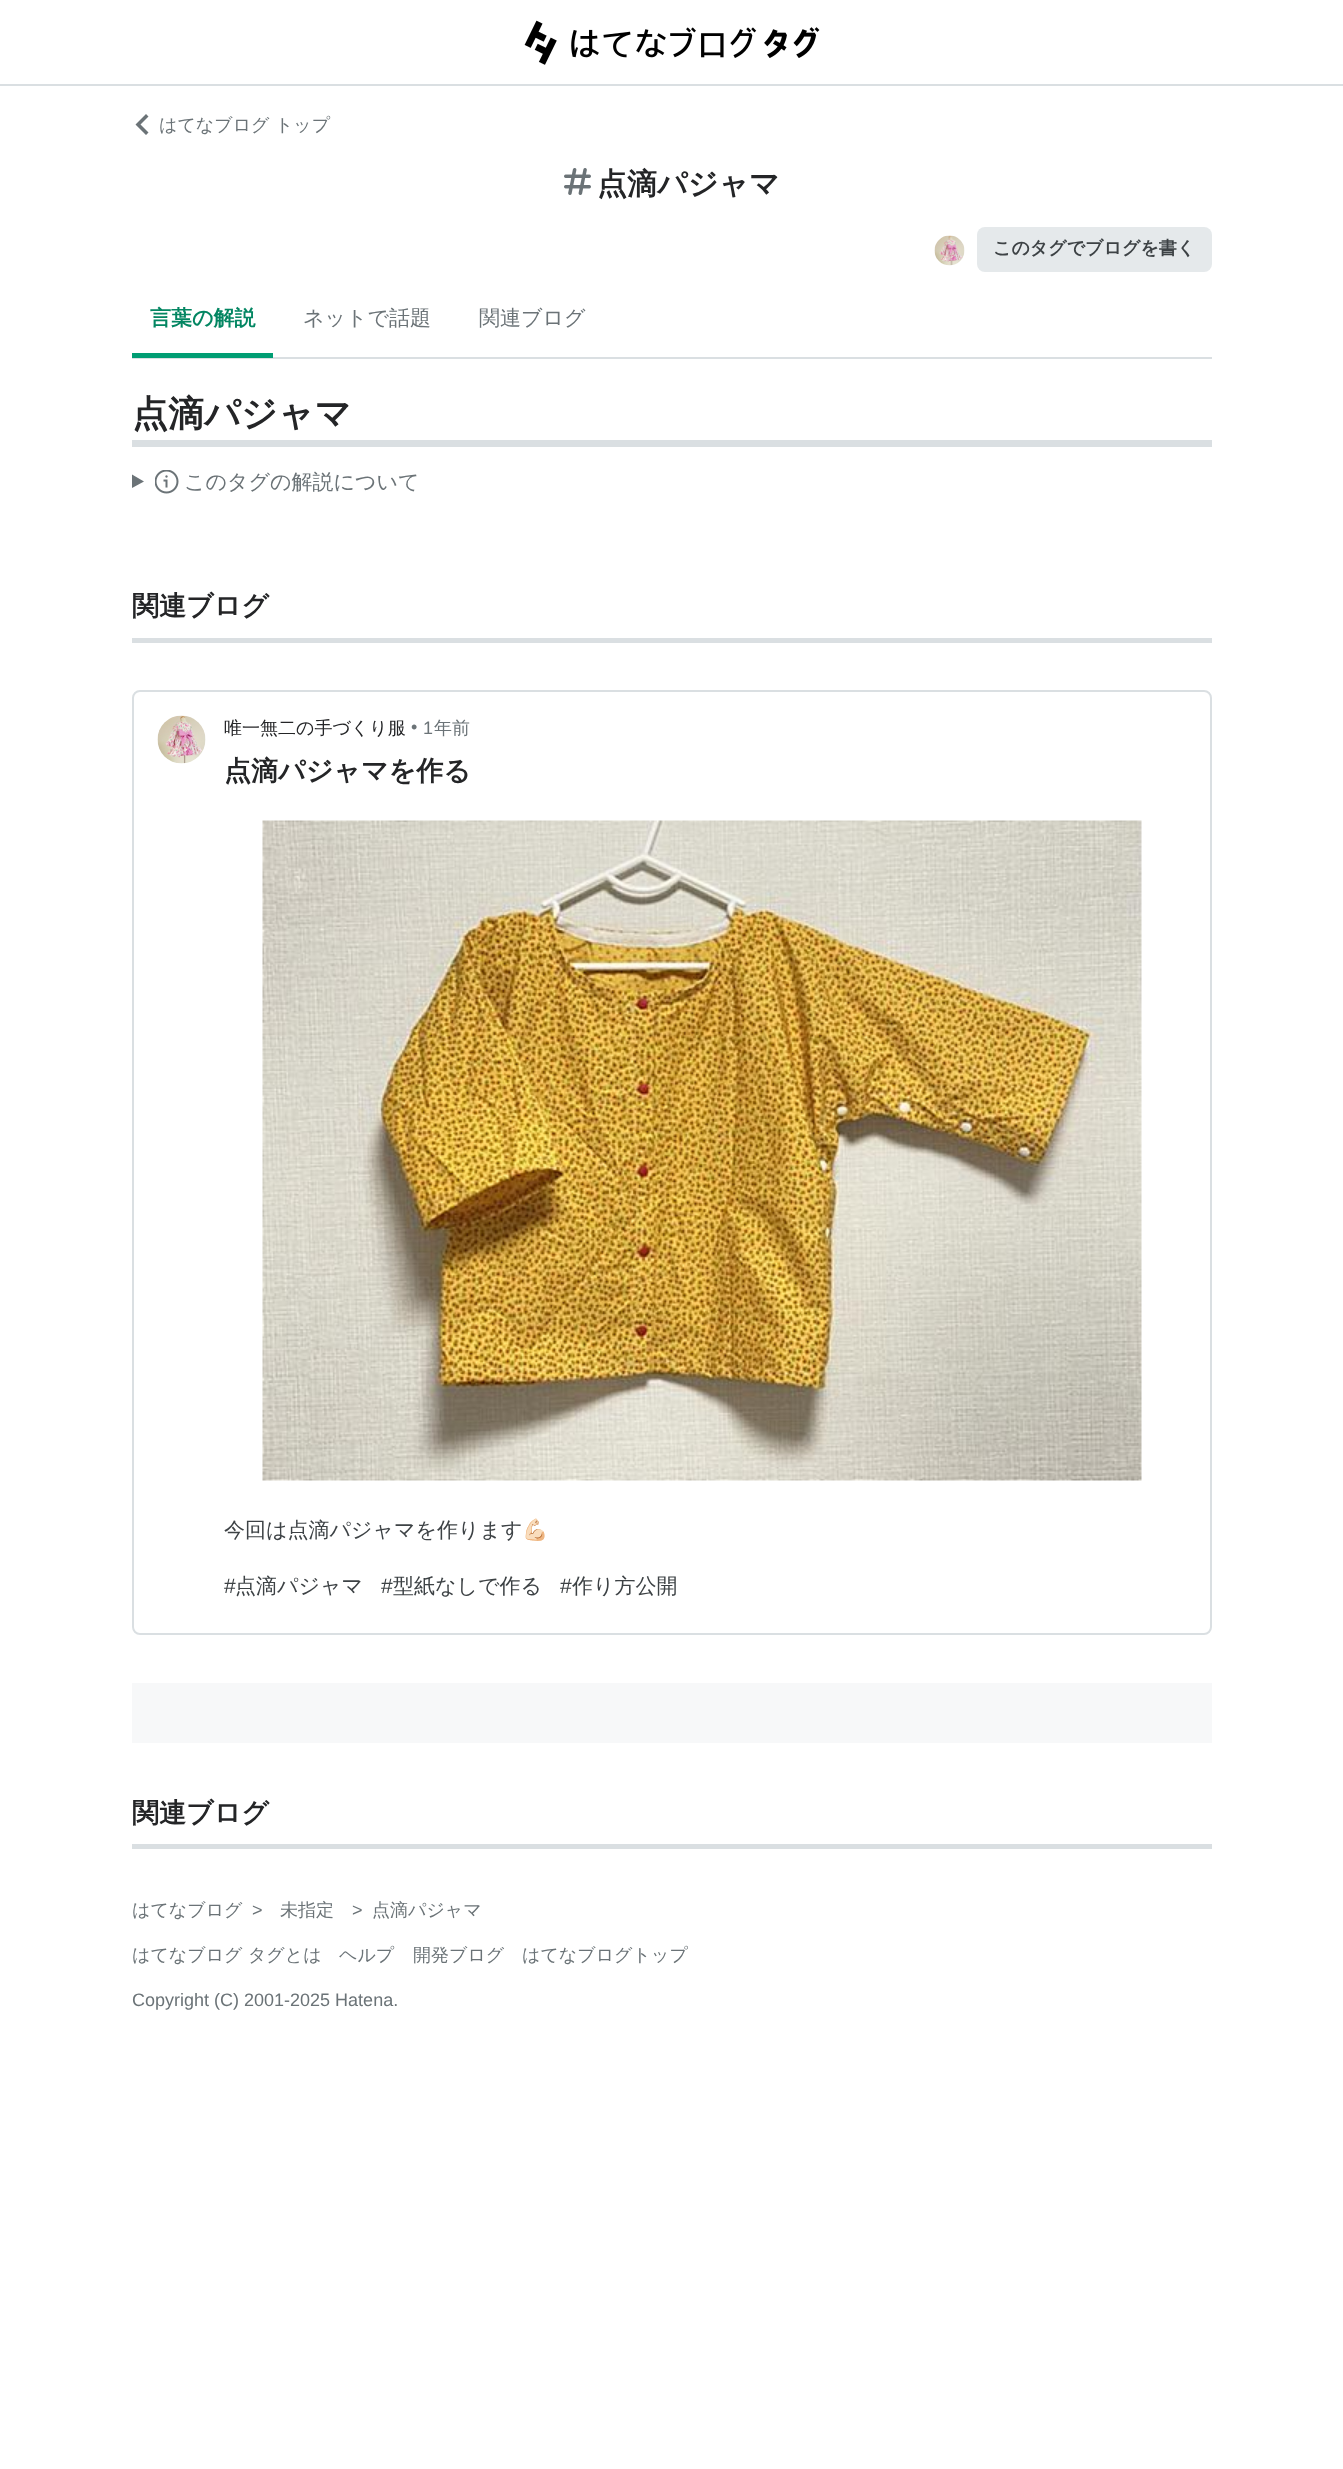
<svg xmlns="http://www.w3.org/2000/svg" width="1343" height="2469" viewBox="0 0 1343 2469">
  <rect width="100%" height="100%" fill="#fff"/>
  <path d="M0 84h1343v2H0z" fill="#dadfe2"/>
  <image x="524" y="20" width="296" height="45" href="img/1.png"/>
  <path d="M146 114L148.5 116.5L140.5 124.5L148.5 132.5L146 135L135.5 124.5Z" fill="#6b7377"/>
  <image x="564" y="168" width="27" height="27" href="img/2.png"/>
  <image x="934" y="235" width="31" height="31" href="img/3.png"/>
  <rect x="977" y="227" width="235" height="45" rx="8" fill="#e5e9eb"/>
  <path d="M132 357h1080v2H132z" fill="#dadfe2"/>
  <path d="M132 353h141v5H132z" fill="#009d73"/>
  <path d="M132 440h1080v7H132z" fill="#dadfe2"/>
  <path d="M132 474.5L144 481.5L132 488Z" fill="#6b7377"/>
  <image x="155" y="470" width="24" height="24" href="img/4.png"/>
  <path d="M132 638h1080v5H132z" fill="#dadfe2"/>
  <rect x="133" y="691" width="1078" height="943" rx="7" fill="none" stroke="#dadfe2" stroke-width="2"/>
  <image x="157" y="715" width="49" height="49" href="img/5.png"/>
  <image x="262" y="820" width="880" height="661" href="img/6.png"/>
  <path d="M132 1683h1080v60H132z" fill="#f7f8f9"/>
  <path d="M132 1844h1080v5H132z" fill="#dadfe2"/>
  <text x="159" y="131" font-family="WenQuanYi Zen Hei" font-size="18" font-weight="500" fill="#6b7377">はてなブログ トップ</text>
  <text x="597" y="194" font-family="WenQuanYi Zen Hei" font-size="30" font-weight="bold" fill="#242527">点滴パジャマ</text>
  <text x="993" y="254" font-family="WenQuanYi Zen Hei" font-size="18" font-weight="bold" fill="#3d4245">このタグでブログを書く</text>
  <text x="150" y="325" font-family="WenQuanYi Zen Hei" font-size="21" font-weight="bold" fill="#038662">言葉の解説</text>
  <g font-family="WenQuanYi Zen Hei" font-size="21" font-weight="500" fill="#6b7377">
    <text x="303" y="325">ネットで話題</text>
    <text x="479" y="325">関連ブログ</text>
  </g>
  <text x="132" y="426" font-family="WenQuanYi Zen Hei" font-size="36" font-weight="bold" fill="#242527">点滴パジャマ</text>
  <text x="184" y="489" font-family="WenQuanYi Zen Hei" font-size="21" font-weight="500" fill="#6b7377">このタグの解説について</text>
  <text x="132" y="615" font-family="WenQuanYi Zen Hei" font-size="27" font-weight="bold" fill="#242527">関連ブログ</text>
  <text x="224" y="734" font-family="WenQuanYi Zen Hei" font-size="18" font-weight="500" fill="#242527">唯一無二の手づくり服</text>
  <g font-family="Liberation Sans" font-size="18" fill="#6b7377">
    <text x="411" y="733">•</text>
    <text x="423" y="734">1</text>
  </g>
  <text x="434" y="734" font-family="WenQuanYi Zen Hei" font-size="18" font-weight="500" fill="#6b7377">年前</text>
  <text x="224" y="780" font-family="WenQuanYi Zen Hei" font-size="27" font-weight="bold" fill="#242527">点滴パジャマを作る</text>
  <text x="224" y="1537" font-family="WenQuanYi Zen Hei" font-size="21" font-weight="500" fill="#3d4245">今回は点滴パジャマを作ります</text>
  <text x="522" y="1537" font-family="Noto Color Emoji" font-size="21" fill="#3d4245">💪🏻</text>
  <text x="224" y="1593" font-family="Liberation Sans" font-size="21" fill="#3d4245">#</text>
  <text x="235" y="1593" font-family="WenQuanYi Zen Hei" font-size="21" font-weight="500" fill="#3d4245">点滴パジャマ</text>
  <text x="381" y="1593" font-family="Liberation Sans" font-size="21" fill="#3d4245">#</text>
  <text x="393" y="1593" font-family="WenQuanYi Zen Hei" font-size="21" font-weight="500" fill="#3d4245">型紙なしで作る</text>
  <text x="560" y="1593" font-family="Liberation Sans" font-size="21" fill="#3d4245">#</text>
  <text x="572" y="1593" font-family="WenQuanYi Zen Hei" font-size="21" font-weight="500" fill="#3d4245">作り方公開</text>
  <text x="132" y="1822" font-family="WenQuanYi Zen Hei" font-size="27" font-weight="bold" fill="#242527">関連ブログ</text>
  <text x="132" y="1916" font-family="WenQuanYi Zen Hei" font-size="18" font-weight="500" fill="#6b7377">はてなブログ</text>
  <text x="252" y="1916" font-family="Liberation Sans" font-size="18" fill="#6b7377">&gt;</text>
  <text x="280" y="1916" font-family="WenQuanYi Zen Hei" font-size="18" font-weight="500" fill="#6b7377">未指定</text>
  <text x="352" y="1916" font-family="Liberation Sans" font-size="18" fill="#6b7377">&gt;</text>
  <g font-family="WenQuanYi Zen Hei" font-size="18" font-weight="500" fill="#6b7377">
    <text x="372" y="1916">点滴パジャマ</text>
    <text x="132" y="1961">はてなブログ タグとは</text>
    <text x="339" y="1961">ヘルプ</text>
    <text x="413" y="1961">開発ブログ</text>
    <text x="522" y="1961">はてなブログトップ</text>
  </g>
  <text x="132" y="2006" font-family="Liberation Sans" font-size="18" fill="#6b7377">Copyright (C) 2001-2025 Hatena.</text>
</svg>
